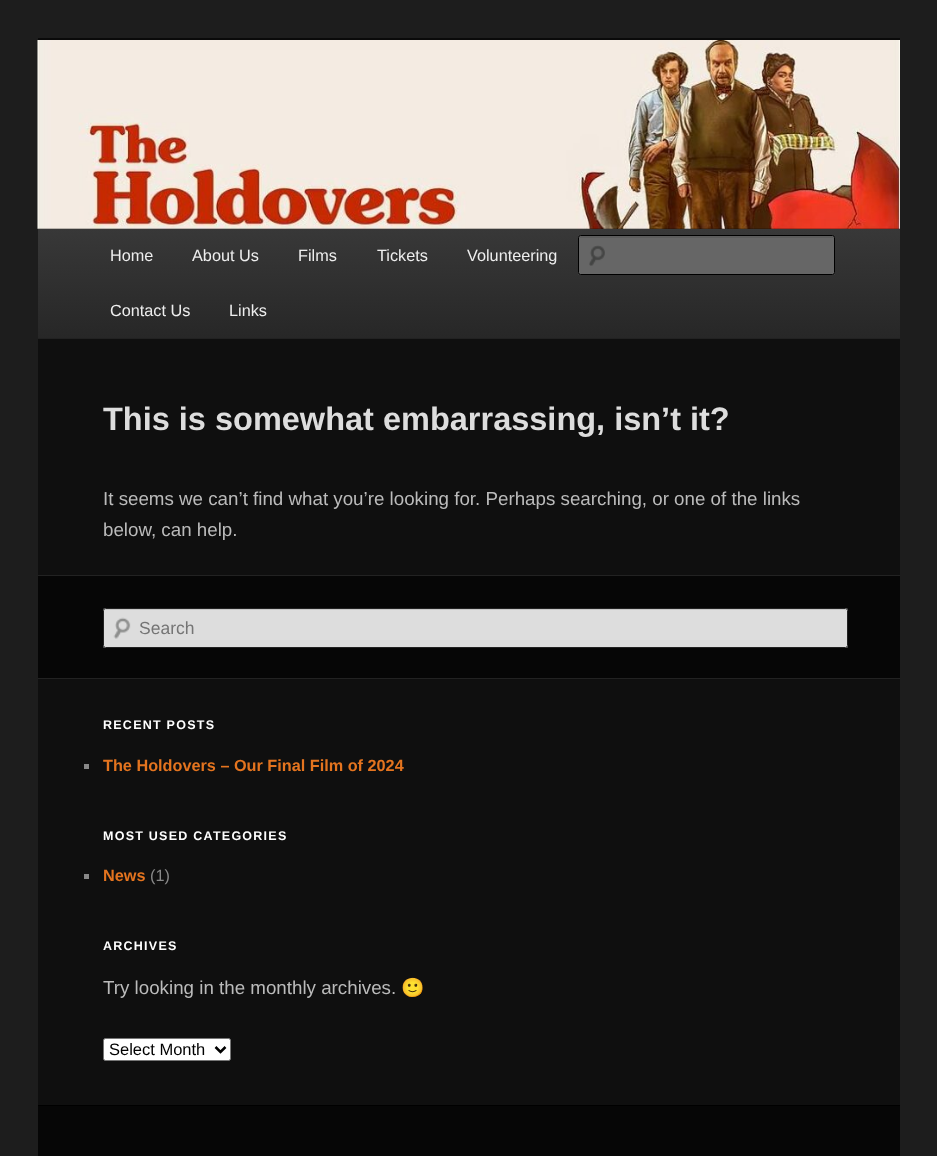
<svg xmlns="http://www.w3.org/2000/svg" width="937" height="1156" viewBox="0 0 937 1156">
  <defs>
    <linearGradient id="g1" gradientUnits="userSpaceOnUse" x1="469" y1="229" x2="469" y2="338"><stop offset="0" stop-color="#383838"/><stop offset="1" stop-color="#272727"/></linearGradient>
  </defs>
  <rect width="100%" height="100%" fill="#1d1d1d"/>
  <path d="M38 228h862v877H38z" fill="#0f0f0f"/>
  <path d="M38 38h862v2H38z" fill="#0a0a0a"/>
  <image x="37" y="40" width="863" height="189" href="img/1.png"/>
  <path d="M38 229h862v109H38z" fill="url(#g1)"/>
  <path d="M38 338h862v1H38z" fill="#222"/>
  <rect x="578" y="235" width="257" height="40" rx="2.5" fill="#666"/>
  <image x="589" y="245" width="16" height="21" href="img/2.png"/>
  <path d="M580 238H832C833 238 834 238 834 239V236H580C579 236 579 238 579 239C579 238 579 238 580 238Z" fill="#5c5c5c"/>
  <rect x="578.5" y="235.5" width="256" height="39" rx="2" fill="none" stroke="#000"/>
  <path d="M38 576h862v102H38z" fill="#060606"/>
  <path d="M38 575h862v1H38z" fill="#222"/>
  <path d="M38 678h862v1H38z" fill="#222"/>
  <rect x="103" y="608" width="745" height="40" rx="2.5" fill="#ddd"/>
  <image x="113" y="617" width="18" height="22" href="img/3.png"/>
  <path d="M105 610H845L846 611C846 610 846 609 845 609H105C104 609 104 610 104 611Z" fill="#c7c7c7"/>
  <rect x="103.5" y="608.5" width="744" height="39" rx="2" fill="none" stroke="#222"/>
  <path d="M84 764h5v5H84z" fill="#888"/>
  <path d="M84 874h5v5H84z" fill="#888"/>
  <rect x="103.5" y="1038.5" width="127" height="22" rx="2" fill="#fff" stroke="#767676"/>
  <path d="M215.5 1047L220.5 1052L225.5 1047" fill="none" stroke="#000" stroke-width="2.5"/>
  <path d="M38 1106h862v50H38z" fill="#060606"/>
  <path d="M38 1105h862v1H38z" fill="#000"/>
  <g font-family="Liberation Sans" font-size="16.25" fill="#eee">
    <text x="110" y="261">Home</text>
    <text x="192" y="261">About Us</text>
    <text x="298" y="261">Films</text>
    <text x="377" y="261">Tickets</text>
    <text x="467" y="261">Volunteering</text>
    <text x="110" y="316">Contact Us</text>
    <text x="229" y="316">Links</text>
  </g>
  <text x="103" y="430" font-family="Liberation Sans" font-size="32.5" font-weight="bold" fill="#ddd">This is somewhat embarrassing, isn’t it?</text>
  <g font-family="Liberation Sans" font-size="18.75" fill="#bbb">
    <text x="103" y="505">It seems we can’t find what you’re looking for. Perhaps searching, or one of the links</text>
    <text x="103" y="536">below, can help.</text>
  </g>
  <text x="139" y="634" font-family="Liberation Sans" font-size="17.5" fill="#757575">Search</text>
  <text x="103" y="729" font-family="Liberation Sans" font-size="12.5" font-weight="bold" letter-spacing="1.25" fill="#fff">RECENT POSTS</text>
  <text x="103" y="771" font-family="Liberation Sans" font-size="16.25" font-weight="bold" fill="#e4741f">The Holdovers – Our Final Film of 2024</text>
  <text x="103" y="840" font-family="Liberation Sans" font-size="12.5" font-weight="bold" letter-spacing="1.25" fill="#fff">MOST USED CATEGORIES</text>
  <text x="103" y="881" font-family="Liberation Sans" font-size="16.25" font-weight="bold" fill="#e4741f">News</text>
  <text x="150" y="881" font-family="Liberation Sans" font-size="16.25" fill="#888">(1)</text>
  <text x="103" y="950" font-family="Liberation Sans" font-size="12.5" font-weight="bold" letter-spacing="1.25" fill="#fff">ARCHIVES</text>
  <text x="103" y="994" font-family="Liberation Sans" font-size="18.75" fill="#bbb">Try looking in the monthly archives.</text>
  <text x="401" y="994" font-family="Noto Color Emoji" font-size="18.75" fill="#bbb">🙂</text>
  <text x="109" y="1055" font-family="Liberation Sans" font-size="16.5" fill="#000">Select Month</text>
</svg>
